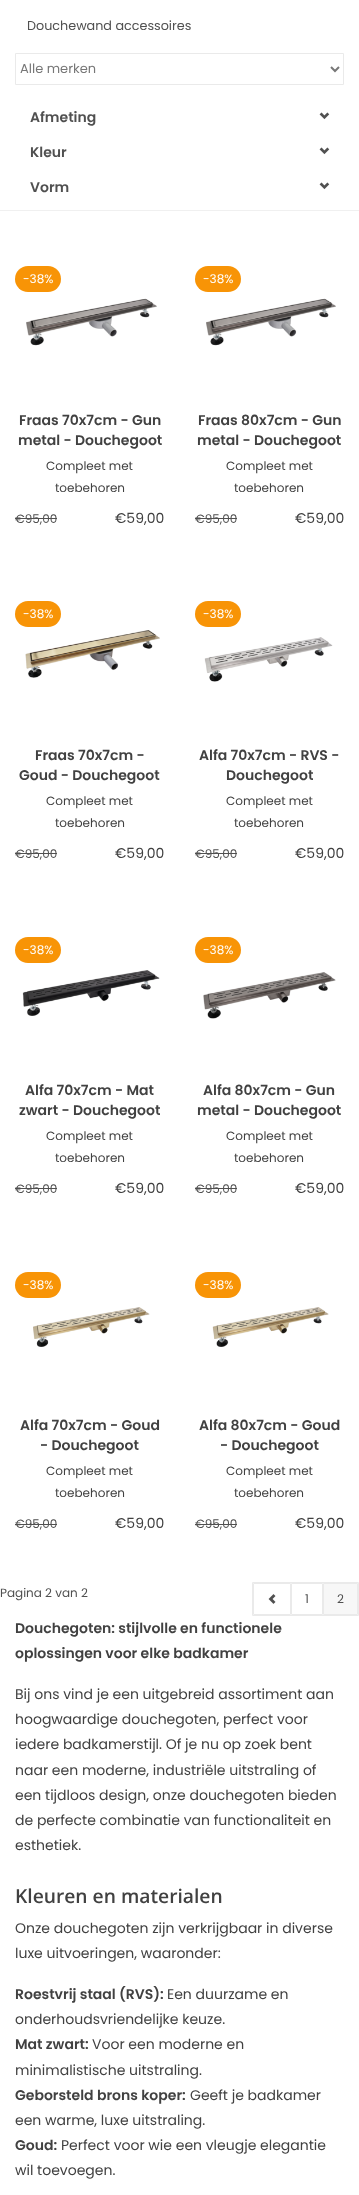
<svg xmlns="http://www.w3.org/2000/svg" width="359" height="2195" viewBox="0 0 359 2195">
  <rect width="100%" height="100%" fill="#fff"/>
  <path d="M0 210h359v1H0z" fill="#f0f0f0"/>
  <path d="M15.5 53.5h328v31H15.5z" fill="none" stroke="#eaeaea"/>
  <path d="M331 67L335 71L339 67" fill="none" stroke="#777" stroke-width="2"/>
  <image x="319" y="112" width="11" height="8" href="img/1.png"/>
  <image x="319" y="147" width="11" height="8" href="img/1.png"/>
  <image x="319" y="182" width="11" height="8" href="img/1.png"/>
  <rect x="15" y="266" width="46" height="26" rx="13" fill="#f89406"/>
  <image x="26" y="298" width="131" height="48" href="img/2.png"/>
  <path d="M15 518h42v1H15z" fill="#505050"/>
  <rect x="195" y="266" width="46" height="26" rx="13" fill="#f89406"/>
  <image x="206" y="298" width="130" height="48" href="img/3.png"/>
  <path d="M195 518h42v1H195z" fill="#505050"/>
  <rect x="15" y="601" width="46" height="26" rx="13" fill="#f89406"/>
  <image x="25" y="630" width="135" height="48" href="img/4.png"/>
  <path d="M15 853h42v1H15z" fill="#505050"/>
  <rect x="195" y="601" width="46" height="26" rx="13" fill="#f89406"/>
  <image x="204" y="637" width="129" height="45" href="img/5.png"/>
  <path d="M195 853h42v1H195z" fill="#505050"/>
  <rect x="15" y="937" width="46" height="26" rx="13" fill="#f89406"/>
  <image x="22" y="970" width="138" height="46" href="img/6.png"/>
  <path d="M15 1188h42v1H15z" fill="#505050"/>
  <rect x="195" y="937" width="46" height="26" rx="13" fill="#f89406"/>
  <image x="203" y="972" width="133" height="47" href="img/7.png"/>
  <path d="M195 1188h42v1H195z" fill="#505050"/>
  <rect x="15" y="1272" width="46" height="26" rx="13" fill="#f89406"/>
  <image x="33" y="1307" width="117" height="40" href="img/8.png"/>
  <path d="M15 1524h42v1H15z" fill="#505050"/>
  <rect x="195" y="1272" width="46" height="26" rx="13" fill="#f89406"/>
  <image x="212" y="1307" width="117" height="40" href="img/9.png"/>
  <path d="M195 1524h42v1H195z" fill="#505050"/>
  <path d="M252.5 1582.5h106v33H252.5z" fill="none" stroke="#eaeaea"/>
  <path d="M253.5 1583.5h37v31H253.5z" fill="none" stroke="#eaeaea"/>
  <image x="268" y="1594" width="8" height="10" href="img/10.png"/>
  <path d="M291.5 1583.5h31v31H291.5z" fill="none" stroke="#eaeaea"/>
  <path d="M323.5 1583.5h34v31H323.5z" fill="#f7f7f7" stroke="#eaeaea"/>
  <text x="27" y="30" font-family="Poppins" font-size="12.75" fill="#505050">Douchewand accessoires</text>
  <text x="20" y="73" font-family="Poppins" font-size="13" fill="#777">Alle merken</text>
  <g font-family="Poppins" font-size="14" font-weight="600" fill="#505050">
    <text x="30" y="122">Afmeting</text>
    <text x="30" y="157">Kleur</text>
    <text x="30" y="192">Vorm</text>
  </g>
  <text x="23" y="283" font-family="Poppins" font-size="12" fill="#fff">-38%</text>
  <g font-family="Poppins" font-size="14" font-weight="600" fill="#414141">
    <text x="19" y="425">Fraas 70x7cm - Gun</text>
    <text x="18" y="445">metal - Douchegoot</text>
  </g>
  <g font-family="Poppins" font-size="12" fill="#414141">
    <text x="46" y="470">Compleet met</text>
    <text x="55" y="492">toebehoren</text>
  </g>
  <text x="15" y="523" font-family="Poppins" font-size="12" fill="#505050">€95,00</text>
  <text x="115" y="523" font-family="Poppins" font-size="14" fill="#414141">€59,00</text>
  <text x="203" y="283" font-family="Poppins" font-size="12" fill="#fff">-38%</text>
  <g font-family="Poppins" font-size="14" font-weight="600" fill="#414141">
    <text x="198" y="425">Fraas 80x7cm - Gun</text>
    <text x="197" y="445">metal - Douchegoot</text>
  </g>
  <g font-family="Poppins" font-size="12" fill="#414141">
    <text x="226" y="470">Compleet met</text>
    <text x="234" y="492">toebehoren</text>
  </g>
  <text x="195" y="523" font-family="Poppins" font-size="12" fill="#505050">€95,00</text>
  <text x="295" y="523" font-family="Poppins" font-size="14" fill="#414141">€59,00</text>
  <text x="23" y="618" font-family="Poppins" font-size="12" fill="#fff">-38%</text>
  <g font-family="Poppins" font-size="14" font-weight="600" fill="#414141">
    <text x="35" y="760">Fraas 70x7cm -</text>
    <text x="19" y="780">Goud - Douchegoot</text>
  </g>
  <g font-family="Poppins" font-size="12" fill="#414141">
    <text x="46" y="805">Compleet met</text>
    <text x="55" y="827">toebehoren</text>
  </g>
  <text x="15" y="858" font-family="Poppins" font-size="12" fill="#505050">€95,00</text>
  <text x="115" y="858" font-family="Poppins" font-size="14" fill="#414141">€59,00</text>
  <text x="203" y="618" font-family="Poppins" font-size="12" fill="#fff">-38%</text>
  <g font-family="Poppins" font-size="14" font-weight="600" fill="#414141">
    <text x="199" y="760">Alfa 70x7cm - RVS -</text>
    <text x="226" y="780">Douchegoot</text>
  </g>
  <g font-family="Poppins" font-size="12" fill="#414141">
    <text x="226" y="805">Compleet met</text>
    <text x="234" y="827">toebehoren</text>
  </g>
  <text x="195" y="858" font-family="Poppins" font-size="12" fill="#505050">€95,00</text>
  <text x="295" y="858" font-family="Poppins" font-size="14" fill="#414141">€59,00</text>
  <text x="23" y="954" font-family="Poppins" font-size="12" fill="#fff">-38%</text>
  <g font-family="Poppins" font-size="14" font-weight="600" fill="#414141">
    <text x="25" y="1095">Alfa 70x7cm - Mat</text>
    <text x="19" y="1115">zwart - Douchegoot</text>
  </g>
  <g font-family="Poppins" font-size="12" fill="#414141">
    <text x="46" y="1140">Compleet met</text>
    <text x="55" y="1162">toebehoren</text>
  </g>
  <text x="15" y="1193" font-family="Poppins" font-size="12" fill="#505050">€95,00</text>
  <text x="115" y="1193" font-family="Poppins" font-size="14" fill="#414141">€59,00</text>
  <text x="203" y="954" font-family="Poppins" font-size="12" fill="#fff">-38%</text>
  <g font-family="Poppins" font-size="14" font-weight="600" fill="#414141">
    <text x="203" y="1095">Alfa 80x7cm - Gun</text>
    <text x="197" y="1115">metal - Douchegoot</text>
  </g>
  <g font-family="Poppins" font-size="12" fill="#414141">
    <text x="226" y="1140">Compleet met</text>
    <text x="234" y="1162">toebehoren</text>
  </g>
  <text x="195" y="1193" font-family="Poppins" font-size="12" fill="#505050">€95,00</text>
  <text x="295" y="1193" font-family="Poppins" font-size="14" fill="#414141">€59,00</text>
  <text x="23" y="1289" font-family="Poppins" font-size="12" fill="#fff">-38%</text>
  <g font-family="Poppins" font-size="14" font-weight="600" fill="#414141">
    <text x="20" y="1430">Alfa 70x7cm - Goud</text>
    <text x="40" y="1450">- Douchegoot</text>
  </g>
  <g font-family="Poppins" font-size="12" fill="#414141">
    <text x="46" y="1475">Compleet met</text>
    <text x="55" y="1497">toebehoren</text>
  </g>
  <text x="15" y="1528" font-family="Poppins" font-size="12" fill="#505050">€95,00</text>
  <text x="115" y="1528" font-family="Poppins" font-size="14" fill="#414141">€59,00</text>
  <text x="203" y="1289" font-family="Poppins" font-size="12" fill="#fff">-38%</text>
  <g font-family="Poppins" font-size="14" font-weight="600" fill="#414141">
    <text x="199" y="1430">Alfa 80x7cm - Goud</text>
    <text x="220" y="1450">- Douchegoot</text>
  </g>
  <g font-family="Poppins" font-size="12" fill="#414141">
    <text x="226" y="1475">Compleet met</text>
    <text x="234" y="1497">toebehoren</text>
  </g>
  <text x="195" y="1528" font-family="Poppins" font-size="12" fill="#505050">€95,00</text>
  <text x="295" y="1528" font-family="Poppins" font-size="14" fill="#414141">€59,00</text>
  <g font-family="Poppins" font-size="12" fill="#505050">
    <text x="0" y="1597">Pagina 2 van 2</text>
    <text x="305" y="1603">1</text>
    <text x="337" y="1603">2</text>
  </g>
  <g font-family="Poppins" font-size="14" font-weight="600" fill="#414141">
    <text x="15" y="1633">Douchegoten: stijlvolle en functionele</text>
    <text x="15" y="1658">oplossingen voor elke badkamer</text>
  </g>
  <g font-family="Poppins" font-size="14" fill="#414141">
    <text x="15" y="1699">Bij ons vind je een uitgebreid assortiment aan</text>
    <text x="15" y="1724">hoogwaardige douchegoten, perfect voor</text>
    <text x="15" y="1749">iedere badkamerstijl. Of je nu op zoek bent</text>
    <text x="15" y="1775">naar een moderne, industriële uitstraling of</text>
    <text x="15" y="1800">een tijdloos design, onze douchegoten bieden</text>
    <text x="15" y="1825">de perfecte combinatie van functionaliteit en</text>
    <text x="15" y="1850">esthetiek.</text>
  </g>
  <text x="15" y="1903" font-family="Open Sans" font-size="19.25" font-weight="600" fill="#414141">Kleuren en materialen</text>
  <g font-family="Poppins" font-size="14" fill="#414141">
    <text x="15" y="1933">Onze douchegoten zijn verkrijgbaar in diverse</text>
    <text x="15" y="1958">luxe uitvoeringen, waaronder:</text>
  </g>
  <text x="15" y="1999" font-family="Poppins" font-size="14" font-weight="600" fill="#414141">Roestvrij staal (RVS):</text>
  <g font-family="Poppins" font-size="14" fill="#414141">
    <text x="167" y="1999">Een duurzame en</text>
    <text x="15" y="2024">onderhoudsvriendelijke keuze.</text>
  </g>
  <text x="15" y="2049" font-family="Poppins" font-size="14" font-weight="600" fill="#414141">Mat zwart:</text>
  <g font-family="Poppins" font-size="14" fill="#414141">
    <text x="92" y="2049">Voor een moderne en</text>
    <text x="15" y="2075">minimalistische uitstraling.</text>
  </g>
  <text x="15" y="2100" font-family="Poppins" font-size="14" font-weight="600" fill="#414141">Geborsteld brons koper:</text>
  <g font-family="Poppins" font-size="14" fill="#414141">
    <text x="190" y="2100">Geeft je badkamer</text>
    <text x="15" y="2125">een warme, luxe uitstraling.</text>
  </g>
  <text x="15" y="2150" font-family="Poppins" font-size="14" font-weight="600" fill="#414141">Goud:</text>
  <g font-family="Poppins" font-size="14" fill="#414141">
    <text x="61" y="2150">Perfect voor wie een vleugje elegantie</text>
    <text x="15" y="2175">wil toevoegen.</text>
  </g>
</svg>
